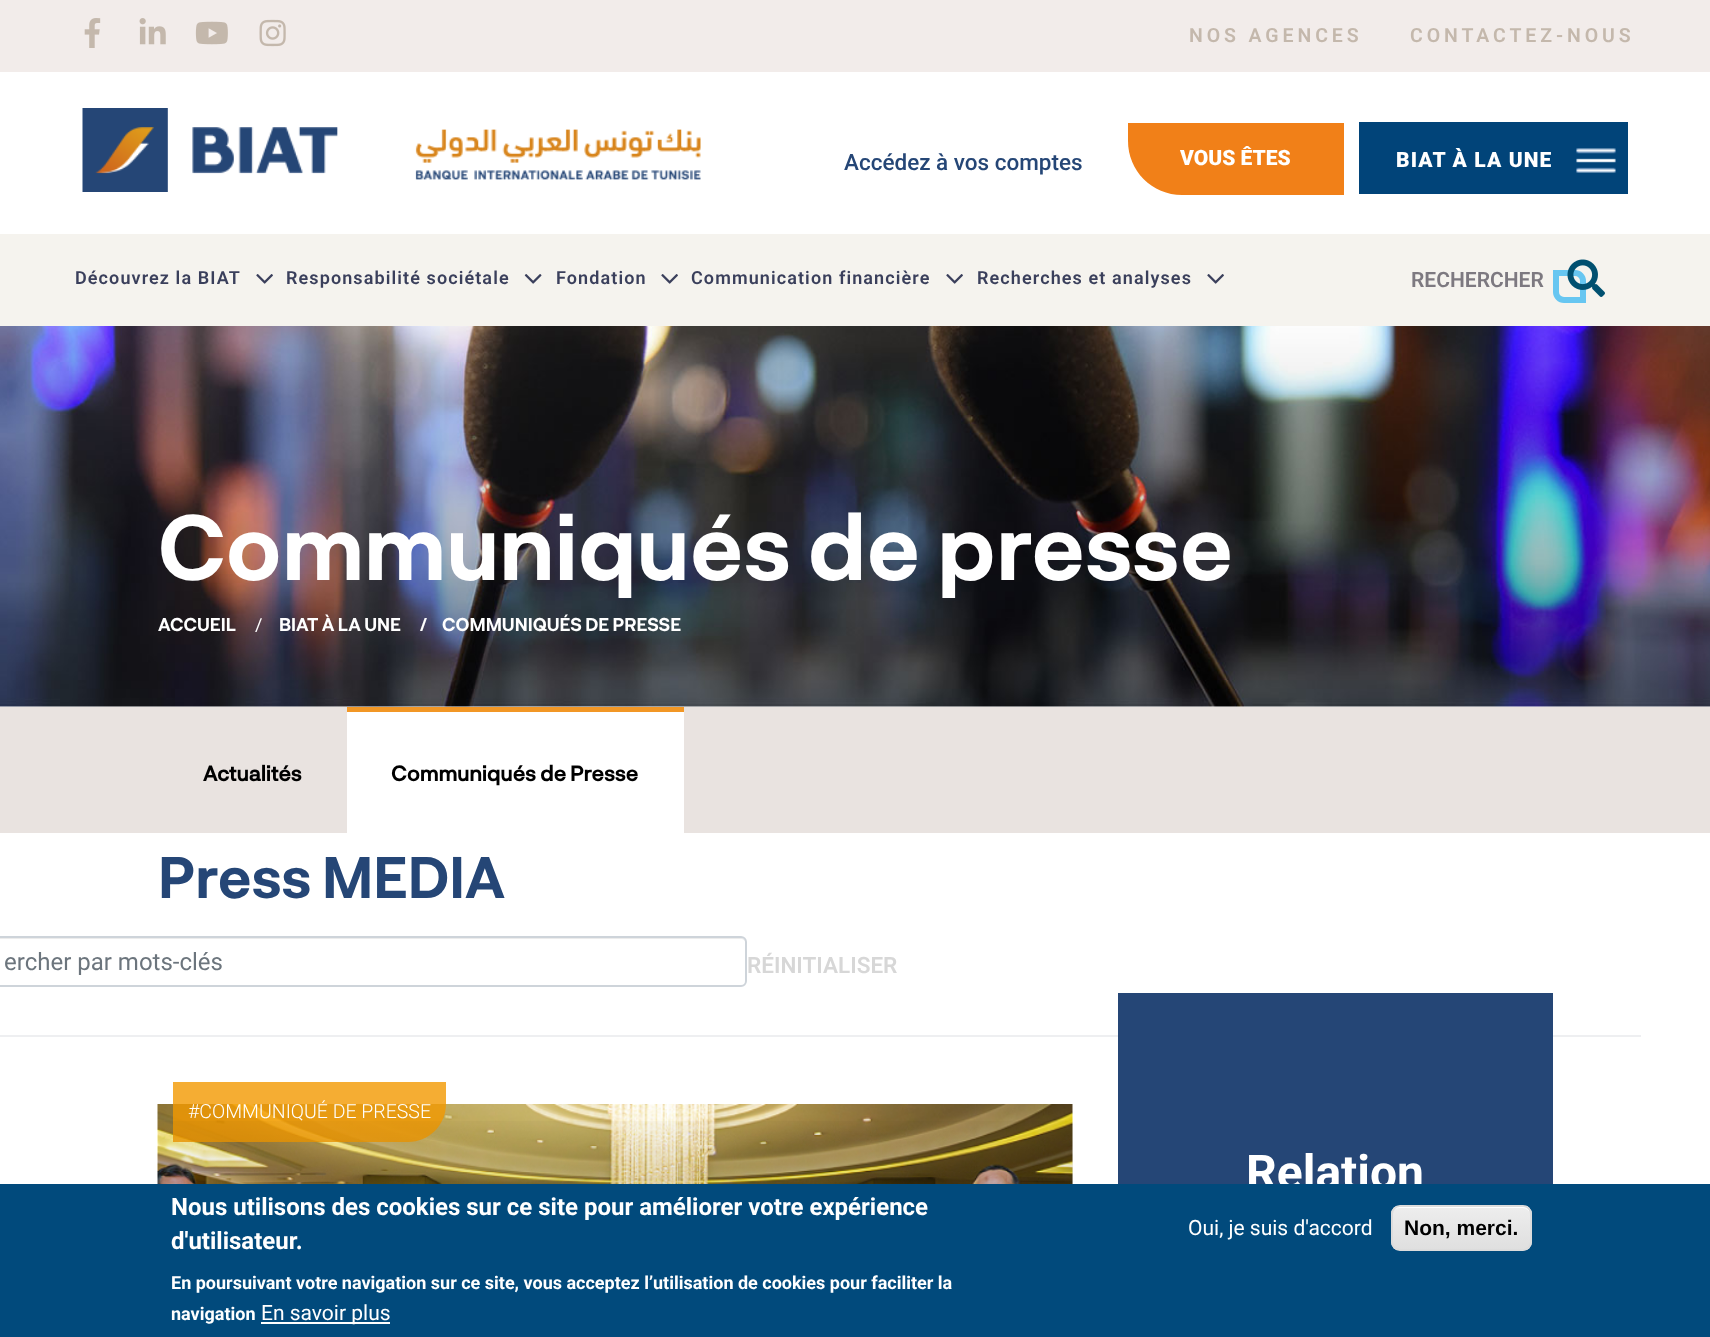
<svg xmlns="http://www.w3.org/2000/svg" width="1710" height="1337" viewBox="0 0 1710 1337">
  <defs>
    <linearGradient id="g1" gradientUnits="userSpaceOnUse" x1="615" y1="1104" x2="615" y2="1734"><stop offset="0" stop-color="#000" stop-opacity="0"/><stop offset="0.51" stop-color="#000" stop-opacity="0.4"/><stop offset="1" stop-color="#000"/></linearGradient>
    <clipPath id="clip1"><rect x="1391" y="1205" width="141" height="46" rx="9"/></clipPath>
    <linearGradient id="g2" gradientUnits="userSpaceOnUse" x1="1461" y1="1206" x2="1461" y2="1250"><stop offset="0.05" stop-color="#ededed"/><stop offset="1" stop-color="#dfdfdf"/></linearGradient>
  </defs>
  <rect width="100%" height="100%" fill="#fff"/>
  <path d="M0 0h1710v72H0z" fill="#f2ecea"/>
  <image x="84" y="18" width="17" height="30" href="img/1.png"/>
  <image x="139" y="18" width="27" height="27" href="img/2.png"/>
  <image x="195" y="21" width="33" height="24" href="img/3.png"/>
  <image x="259" y="19" width="27" height="28" href="img/4.png"/>
  <image x="82" y="108" width="619" height="84" href="img/5.png"/>
  <path d="M1128 123H1344V195H1182C1152 195 1128 171 1128 141Z" fill="#f18018"/>
  <path d="M1359 122h269v72H1359z" fill="#014479"/>
  <image x="1576" y="148" width="40" height="25" href="img/6.png"/>
  <path d="M0 234h1710v92H0z" fill="#f5f3ee"/>
  <image x="256" y="274" width="17" height="10" href="img/7.png"/>
  <image x="524" y="274" width="18" height="10" href="img/8.png"/>
  <image x="661" y="274" width="17" height="10" href="img/7.png"/>
  <image x="946" y="274" width="17" height="10" href="img/7.png"/>
  <image x="1207" y="274" width="17" height="10" href="img/7.png"/>
  <path d="M1556 273H1575C1579.5 273 1583 276.5 1583 281V300H1564C1559.5 300 1556 296.5 1556 292Z" fill="none" stroke="#67c6f1" stroke-width="6"/>
  <image x="1567" y="259" width="38" height="38" href="img/9.png"/>
  <image x="0" y="326" width="1710" height="381" href="img/10.png"/>
  <path d="M0 707h1710v126H0z" fill="#e9e3e0"/>
  <path d="M347 712h337v121H347z" fill="#fff"/>
  <path d="M347 707h337v5H347z" fill="#f29725"/>
  <path d="M0 1035h1641v2H0z" fill="#eeeff1"/>
  <path d="M-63 939H741C743 939 746 941 746 944V943C746 940 744 938 741 938H-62C-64 938-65 939-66 940Z" fill="#ececec"/>
  <rect x="-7" y="937" width="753" height="49" rx="5" fill="none" stroke="#ced4da" stroke-width="2"/>
  <image x="157" y="1104" width="916" height="80" href="img/11.png"/>
  <path d="M173 1082H446V1104C446 1125 429 1142 408 1142H173Z" fill="#f39800cc"/>
  <path d="M158 1121h915v63H158z" fill="url(#g1)"/>
  <path d="M1118 993h435v191H1118z" fill="#254676"/>
  <g font-family="Roboto" font-size="19.5" font-weight="600" letter-spacing="3.9" fill="#c4b8ac">
    <text x="1189" y="42">NOS AGENCES</text>
    <text x="1410" y="42">CONTACTEZ-NOUS</text>
  </g>
  <text x="844" y="170" font-family="Roboto" font-size="22.5" font-weight="500" fill="#254676">Accédez à vos comptes</text>
  <text x="1180" y="165" font-family="Roboto" font-size="21" font-weight="900" fill="#fff">VOUS ÊTES</text>
  <text x="1396" y="167" font-family="Roboto" font-size="21" font-weight="900" letter-spacing="1.1" fill="#fff">BIAT À LA UNE</text>
  <g font-family="Roboto" font-size="18" font-weight="600" letter-spacing="1.1" fill="#3a3f5b">
    <text x="75" y="284">Découvrez la BIAT</text>
    <text x="286" y="284">Responsabilité sociétale</text>
    <text x="556" y="284">Fondation</text>
    <text x="691" y="284">Communication financière</text>
    <text x="977" y="284">Recherches et analyses</text>
  </g>
  <text x="1411" y="287" font-family="Roboto" font-size="21" font-weight="600" fill="#7d7980">RECHERCHER</text>
  <text x="158" y="580" font-family="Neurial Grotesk" font-size="90" font-weight="bold" fill="#fff">Communiqués de presse</text>
  <text x="158" y="631" font-family="Neurial Grotesk" font-size="18" font-weight="bold" fill="#fff">ACCUEIL</text>
  <text x="255" y="631" font-family="Roboto" font-size="18" fill="#fff">/</text>
  <g font-family="Neurial Grotesk" font-size="18" font-weight="bold" fill="#fff">
    <text x="279" y="631">BIAT À LA UNE</text>
    <text x="420" y="631">/</text>
    <text x="442" y="631">COMMUNIQUÉS DE PRESSE</text>
  </g>
  <g font-family="'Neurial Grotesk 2'" font-size="21" font-weight="bold" fill="#000">
    <text x="203" y="781">Actualités</text>
    <text x="391" y="781">Communiqués de Presse</text>
  </g>
  <text x="158" y="898" font-family="Neurial Grotesk" font-size="57" font-weight="bold" fill="#254676">Press MEDIA</text>
  <text x="4" y="970" font-family="Roboto" font-size="24" fill="#6c757d">ercher par mots-clés</text>
  <text x="747" y="973" font-family="Roboto" font-size="22.5" font-weight="600" fill="#d7d7d7">RÉINITIALISER</text>
  <text x="188" y="1118" font-family="Roboto" font-size="19.5" font-weight="300" fill="#fff">#COMMUNIQUÉ DE PRESSE</text>
  <text x="1246" y="1189" font-family="Roboto" font-size="48" font-weight="bold" fill="#fff">Relation</text>
  <path d="M0 1184h1710v153H0z" fill="#014a7c"/>
  <g font-family="Roboto" font-size="24" font-weight="bold" fill="#fff">
    <text x="171" y="1215">Nous utilisons des cookies sur ce site pour améliorer votre expérience</text>
    <text x="171" y="1249">d'utilisateur.</text>
  </g>
  <g font-family="Roboto" font-size="18" font-weight="bold" fill="#fff">
    <text x="171" y="1289">En poursuivant votre navigation sur ce site, vous acceptez l’utilisation de cookies pour faciliter la</text>
    <text x="171" y="1320">navigation</text>
  </g>
  <path d="M261 1322h129v2H261z" fill="#fff"/>
  <g font-family="Roboto" font-size="21" fill="#fff">
    <text x="261" y="1320">En savoir plus</text>
    <text x="1188" y="1235">Oui, je suis d'accord</text>
  </g>
  <g clip-path="url(#clip1)">
    <path d="M1391 1206h141v44H1391z" fill="url(#g2)"/>
  </g>
  <path d="M1400 1208H1522C1527 1208 1530 1211 1530 1215C1530 1201 1509 1206 1502 1206H1420C1413 1206 1392 1201 1392 1215C1392 1211 1395 1208 1400 1208Z" fill="#fff"/>
  <rect x="1392" y="1206" width="139" height="44" rx="8" fill="none" stroke="#dcdcdc" stroke-width="2"/>
  <text x="1404" y="1235" font-family="Liberation Sans" font-size="21" font-weight="bold" fill="#000">Non, merci.</text>
</svg>
